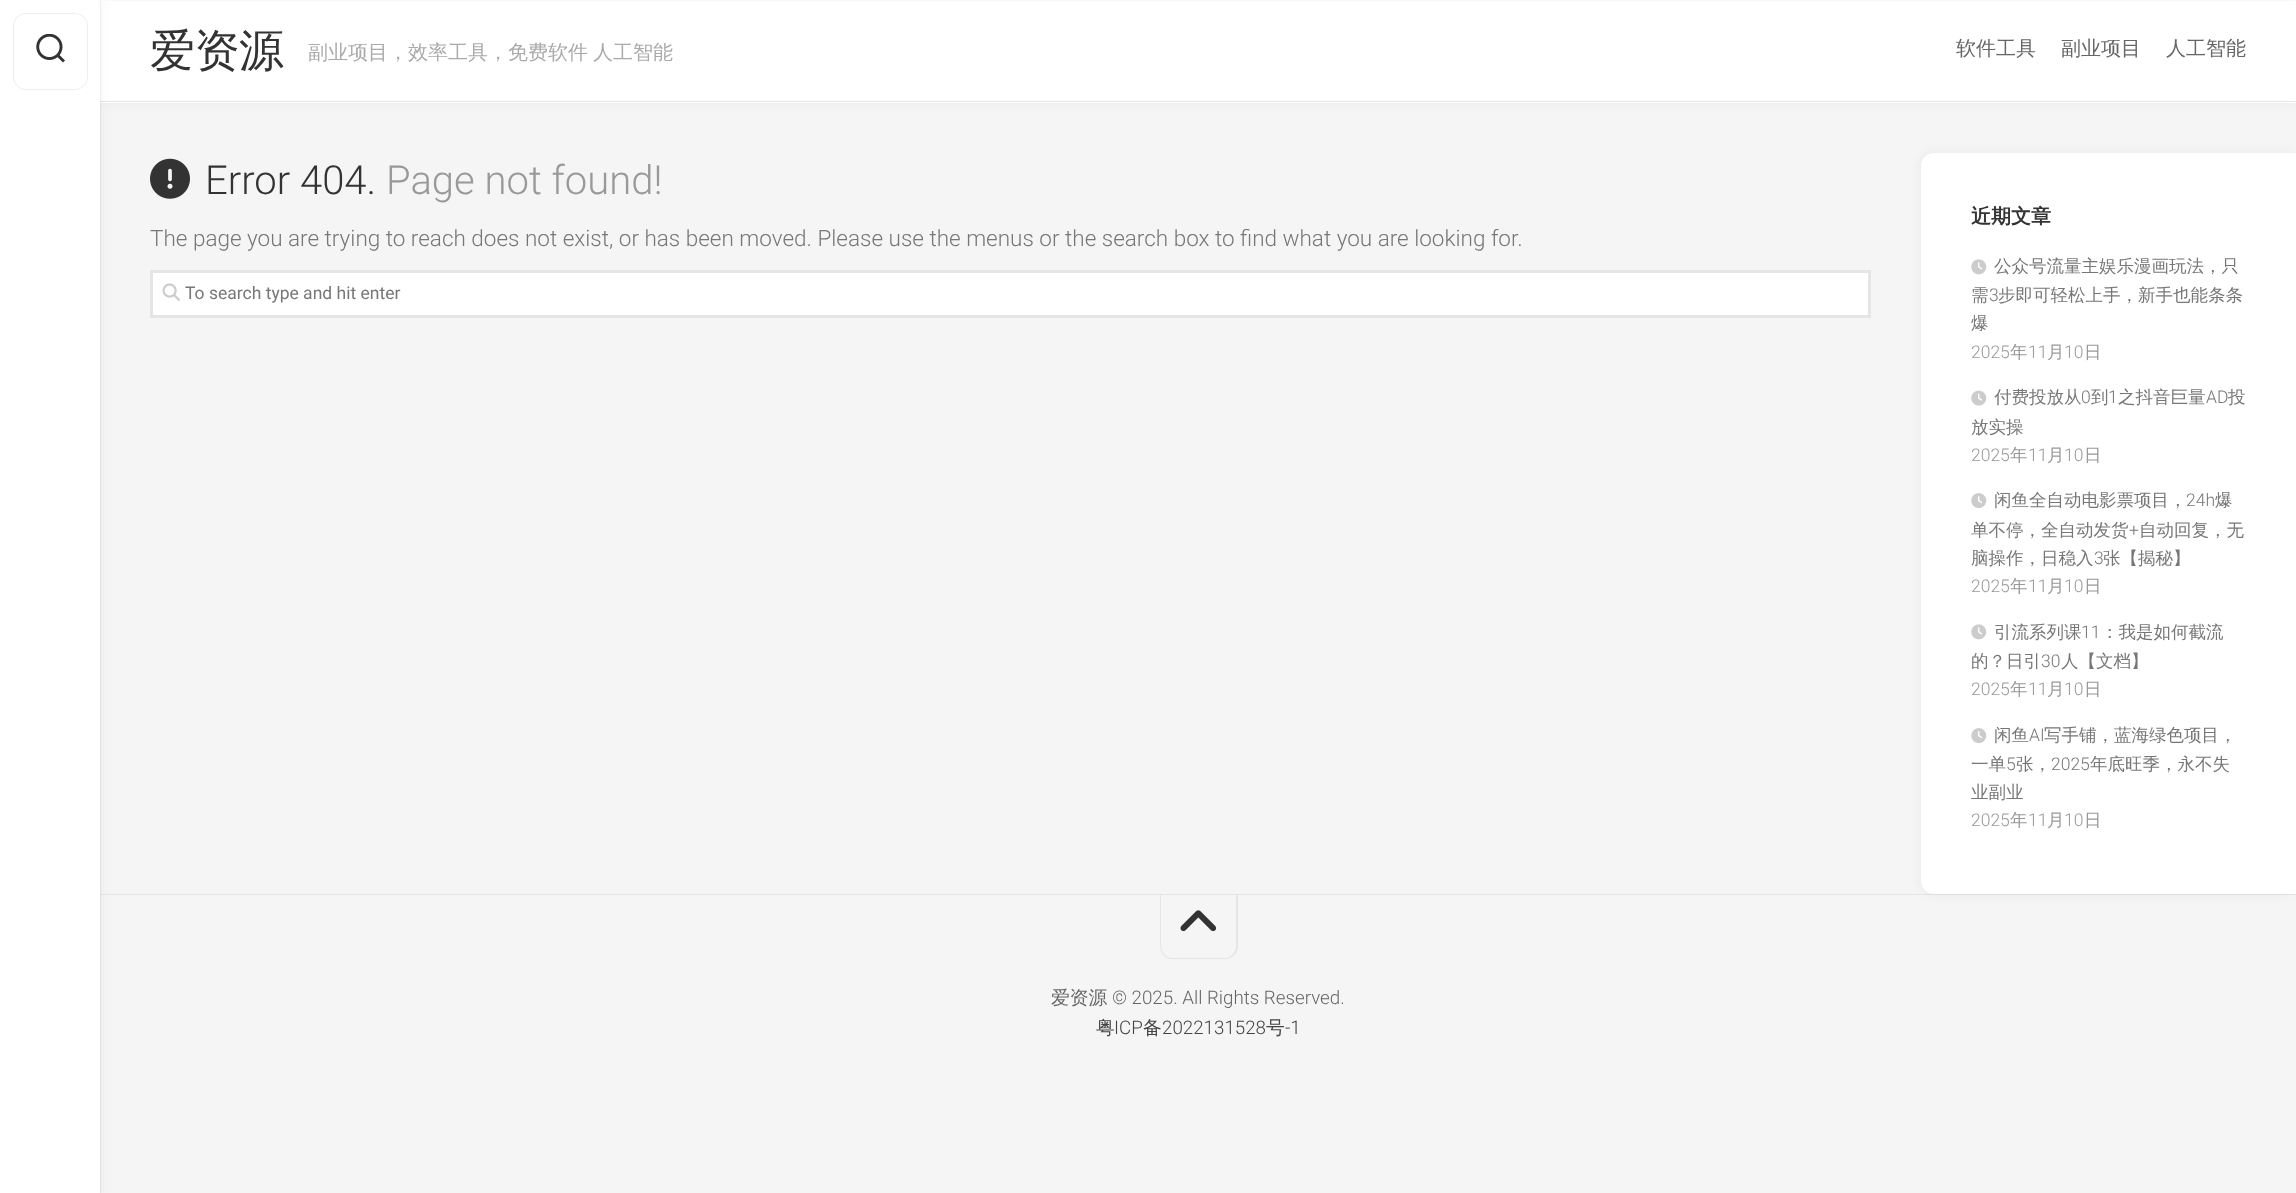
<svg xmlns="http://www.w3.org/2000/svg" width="2296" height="1193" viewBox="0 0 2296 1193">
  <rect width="100%" height="100%" fill="#f5f5f5"/>
  <path d="M100 0h2196v1H100z" fill="#fff"/>
  <path d="M100 1h2196v102H100z" fill="#0000000d" filter="blur(6px)"/>
  <path d="M100 1h2196v102H100z" fill="#fff"/>
  <path d="M100 101h2196v1H100z" fill="#e5e5e5"/>
  <path d="M100 894h2196v1H100z" fill="#e5e5e5"/>
  <path d="M1 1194H101V0H100V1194Z" fill="#0000000d"/>
  <path d="M0 0h100v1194H0z" fill="#0000000d" filter="blur(6px)"/>
  <path d="M0 0h100v1193H0z" fill="#fff"/>
  <rect x="13.5" y="13.5" width="74" height="76" rx="12.5" fill="none" stroke="#eee"/>
  <image x="36" y="34" width="29" height="29" href="img/1.png"/>
  <image x="150" y="158" width="40" height="41" href="img/2.png"/>
  <path d="M151.5 271.5h1718v45H151.5z" fill="#fff" stroke="#e5e5e5" stroke-width="3"/>
  <image x="162" y="283" width="18" height="18" href="img/3.png"/>
  <rect x="1921" y="153" width="375" height="741" rx="13" fill="#0000000d" filter="blur(6px)"/>
  <path d="M1934 153H2296V894H1934C1927 894 1921 888 1921 881V166C1921 159 1927 153 1934 153Z" fill="#fff"/>
  <image x="1971" y="259" width="16" height="16" href="img/4.png"/>
  <image x="1971" y="390" width="16" height="16" href="img/5.png"/>
  <image x="1971" y="493" width="16" height="16" href="img/6.png"/>
  <image x="1971" y="624" width="16" height="16" href="img/4.png"/>
  <image x="1971" y="728" width="16" height="16" href="img/6.png"/>
  <path d="M1160 895H1238V946C1238 953 1232 959 1225 959H1172C1166 959 1160 953 1160 946ZM1161 895H1236V946C1236 952 1231 958 1225 958H1172C1166 958 1161 952 1161 946Z" fill="#e5e5e5" fill-rule="evenodd"/>
  <image x="1180" y="910" width="37" height="22" href="img/7.png"/>
  <text x="150" y="66" font-family="WenQuanYi Zen Hei" font-size="45" font-weight="500" letter-spacing="-0.5" fill="#333">爱资源</text>
  <text x="308" y="59" word-spacing="-1" font-family="WenQuanYi Zen Hei" font-size="20" font-weight="500" fill="#aaa">副业项目，效率工具，免费软件 人工智能</text>
  <g font-family="WenQuanYi Zen Hei" font-size="20" font-weight="500" fill="#666">
    <text x="1956" y="55">软件工具</text>
    <text x="2061" y="55">副业项目</text>
    <text x="2166" y="55">人工智能</text>
  </g>
  <text x="205" y="194" font-family="Roboto" font-size="40" font-weight="300" fill="#333">Error 404.</text>
  <text x="386" y="194" font-family="Roboto" font-size="40" font-weight="300" fill="#999">Page not found!</text>
  <text x="150" y="246" font-family="Roboto" font-size="22.5" font-weight="300" fill="#777">The page you are trying to reach does not exist, or has been moved. Please use the menus or the search box to find what you are looking for.</text>
  <text x="185" y="299" font-family="Roboto" font-size="17.5" fill="#777">To search type and hit enter</text>
  <text x="1971" y="223" font-family="WenQuanYi Zen Hei" font-size="20" font-weight="bold" fill="#333">近期文章</text>
  <g font-family="WenQuanYi Zen Hei" font-size="17.5" font-weight="500" fill="#777">
    <text x="1994" y="272">公众号流量主娱乐漫画玩法，只</text>
    <text x="1971" y="301">需</text>
  </g>
  <text x="1989" y="301" font-family="Roboto" font-size="17.5" font-weight="300" fill="#777">3</text>
  <g font-family="WenQuanYi Zen Hei" font-size="17.5" font-weight="500" fill="#777">
    <text x="1998" y="301">步即可轻松上手，新手也能条条</text>
    <text x="1971" y="329">爆</text>
  </g>
  <text x="1971" y="358" font-family="Roboto" font-size="17.5" font-weight="300" fill="#999">2025</text>
  <text x="2010" y="358" font-family="WenQuanYi Zen Hei" font-size="17.5" font-weight="500" fill="#999">年</text>
  <text x="2028" y="358" font-family="Roboto" font-size="17.5" font-weight="300" fill="#999">11</text>
  <text x="2047" y="358" font-family="WenQuanYi Zen Hei" font-size="17.5" font-weight="500" fill="#999">月</text>
  <text x="2064" y="358" font-family="Roboto" font-size="17.5" font-weight="300" fill="#999">10</text>
  <text x="2084" y="358" font-family="WenQuanYi Zen Hei" font-size="17.5" font-weight="500" fill="#999">日</text>
  <text x="1994" y="403" font-family="WenQuanYi Zen Hei" font-size="17.5" font-weight="500" fill="#777">付费投放从</text>
  <text x="2081" y="403" font-family="Roboto" font-size="17.5" font-weight="300" fill="#777">0</text>
  <text x="2091" y="403" font-family="WenQuanYi Zen Hei" font-size="17.5" font-weight="500" fill="#777">到</text>
  <text x="2108" y="403" font-family="Roboto" font-size="17.5" font-weight="300" fill="#777">1</text>
  <text x="2118" y="403" font-family="WenQuanYi Zen Hei" font-size="17.5" font-weight="500" fill="#777">之抖音巨量</text>
  <text x="2206" y="403" font-family="Roboto" font-size="17.5" font-weight="300" fill="#777">AD</text>
  <g font-family="WenQuanYi Zen Hei" font-size="17.5" font-weight="500" fill="#777">
    <text x="2228" y="403">投</text>
    <text x="1971" y="433">放实操</text>
  </g>
  <text x="1971" y="461" font-family="Roboto" font-size="17.5" font-weight="300" fill="#999">2025</text>
  <text x="2010" y="461" font-family="WenQuanYi Zen Hei" font-size="17.5" font-weight="500" fill="#999">年</text>
  <text x="2028" y="461" font-family="Roboto" font-size="17.5" font-weight="300" fill="#999">11</text>
  <text x="2047" y="461" font-family="WenQuanYi Zen Hei" font-size="17.5" font-weight="500" fill="#999">月</text>
  <text x="2064" y="461" font-family="Roboto" font-size="17.5" font-weight="300" fill="#999">10</text>
  <text x="2084" y="461" font-family="WenQuanYi Zen Hei" font-size="17.5" font-weight="500" fill="#999">日</text>
  <text x="1994" y="506" font-family="WenQuanYi Zen Hei" font-size="17.5" font-weight="500" fill="#777">闲鱼全自动电影票项目，</text>
  <text x="2186" y="506" font-family="Roboto" font-size="17.5" font-weight="300" fill="#777">24h</text>
  <g font-family="WenQuanYi Zen Hei" font-size="17.5" font-weight="500" fill="#777">
    <text x="2215" y="506">爆</text>
    <text x="1971" y="536">单不停，全自动发货</text>
  </g>
  <text x="2129" y="536" font-family="Roboto" font-size="17.5" font-weight="300" fill="#777">+</text>
  <g font-family="WenQuanYi Zen Hei" font-size="17.5" font-weight="500" fill="#777">
    <text x="2139" y="536">自动回复，无</text>
    <text x="1971" y="564">脑操作，日稳入</text>
  </g>
  <text x="2094" y="564" font-family="Roboto" font-size="17.5" font-weight="300" fill="#777">3</text>
  <text x="2103" y="564" font-family="WenQuanYi Zen Hei" font-size="17.5" font-weight="500" fill="#777">张【揭秘】</text>
  <text x="1971" y="592" font-family="Roboto" font-size="17.5" font-weight="300" fill="#999">2025</text>
  <text x="2010" y="592" font-family="WenQuanYi Zen Hei" font-size="17.5" font-weight="500" fill="#999">年</text>
  <text x="2028" y="592" font-family="Roboto" font-size="17.5" font-weight="300" fill="#999">11</text>
  <text x="2047" y="592" font-family="WenQuanYi Zen Hei" font-size="17.5" font-weight="500" fill="#999">月</text>
  <text x="2064" y="592" font-family="Roboto" font-size="17.5" font-weight="300" fill="#999">10</text>
  <text x="2084" y="592" font-family="WenQuanYi Zen Hei" font-size="17.5" font-weight="500" fill="#999">日</text>
  <text x="1994" y="638" font-family="WenQuanYi Zen Hei" font-size="17.5" font-weight="500" fill="#777">引流系列课</text>
  <text x="2081" y="638" font-family="Roboto" font-size="17.5" font-weight="300" fill="#777">11</text>
  <g font-family="WenQuanYi Zen Hei" font-size="17.5" font-weight="500" fill="#777">
    <text x="2101" y="638">：我是如何截流</text>
    <text x="1971" y="667">的？日引</text>
  </g>
  <text x="2041" y="667" font-family="Roboto" font-size="17.5" font-weight="300" fill="#777">30</text>
  <text x="2061" y="667" font-family="WenQuanYi Zen Hei" font-size="17.5" font-weight="500" fill="#777">人【文档】</text>
  <text x="1971" y="695" font-family="Roboto" font-size="17.5" font-weight="300" fill="#999">2025</text>
  <text x="2010" y="695" font-family="WenQuanYi Zen Hei" font-size="17.5" font-weight="500" fill="#999">年</text>
  <text x="2028" y="695" font-family="Roboto" font-size="17.5" font-weight="300" fill="#999">11</text>
  <text x="2047" y="695" font-family="WenQuanYi Zen Hei" font-size="17.5" font-weight="500" fill="#999">月</text>
  <text x="2064" y="695" font-family="Roboto" font-size="17.5" font-weight="300" fill="#999">10</text>
  <text x="2084" y="695" font-family="WenQuanYi Zen Hei" font-size="17.5" font-weight="500" fill="#999">日</text>
  <text x="1994" y="741" font-family="WenQuanYi Zen Hei" font-size="17.5" font-weight="500" fill="#777">闲鱼</text>
  <text x="2029" y="741" font-family="Roboto" font-size="17.5" font-weight="300" fill="#777">AI</text>
  <g font-family="WenQuanYi Zen Hei" font-size="17.5" font-weight="500" fill="#777">
    <text x="2044" y="741">写手铺，蓝海绿色项目，</text>
    <text x="1971" y="770">一单</text>
  </g>
  <text x="2006" y="770" font-family="Roboto" font-size="17.5" font-weight="300" fill="#777">5</text>
  <text x="2016" y="770" font-family="WenQuanYi Zen Hei" font-size="17.5" font-weight="500" fill="#777">张，</text>
  <text x="2051" y="770" font-family="Roboto" font-size="17.5" font-weight="300" fill="#777">2025</text>
  <g font-family="WenQuanYi Zen Hei" font-size="17.5" font-weight="500" fill="#777">
    <text x="2090" y="770">年底旺季，永不失</text>
    <text x="1971" y="798">业副业</text>
  </g>
  <text x="1971" y="826" font-family="Roboto" font-size="17.5" font-weight="300" fill="#999">2025</text>
  <text x="2010" y="826" font-family="WenQuanYi Zen Hei" font-size="17.5" font-weight="500" fill="#999">年</text>
  <text x="2028" y="826" font-family="Roboto" font-size="17.5" font-weight="300" fill="#999">11</text>
  <text x="2047" y="826" font-family="WenQuanYi Zen Hei" font-size="17.5" font-weight="500" fill="#999">月</text>
  <text x="2064" y="826" font-family="Roboto" font-size="17.5" font-weight="300" fill="#999">10</text>
  <text x="2084" y="826" font-family="WenQuanYi Zen Hei" font-size="17.5" font-weight="500" fill="#999">日</text>
  <text x="1051" y="1004" font-family="WenQuanYi Zen Hei" font-size="18.75" font-weight="500" fill="#666">爱资源</text>
  <text x="1112" y="1004" font-family="Roboto" font-size="18.75" font-weight="300" fill="#666">© 2025. All Rights Reserved.</text>
  <text x="1096" y="1034" font-family="WenQuanYi Zen Hei" font-size="18.75" font-weight="500" fill="#444">粤</text>
  <text x="1114" y="1034" font-family="Roboto" font-size="18.75" font-weight="300" fill="#444">ICP</text>
  <text x="1143" y="1034" font-family="WenQuanYi Zen Hei" font-size="18.75" font-weight="500" fill="#444">备</text>
  <text x="1162" y="1034" font-family="Roboto" font-size="18.75" font-weight="300" fill="#444">2022131528</text>
  <text x="1266" y="1034" font-family="WenQuanYi Zen Hei" font-size="18.75" font-weight="500" fill="#444">号</text>
  <text x="1285" y="1034" font-family="Roboto" font-size="18.75" font-weight="300" fill="#444">-1</text>
</svg>
